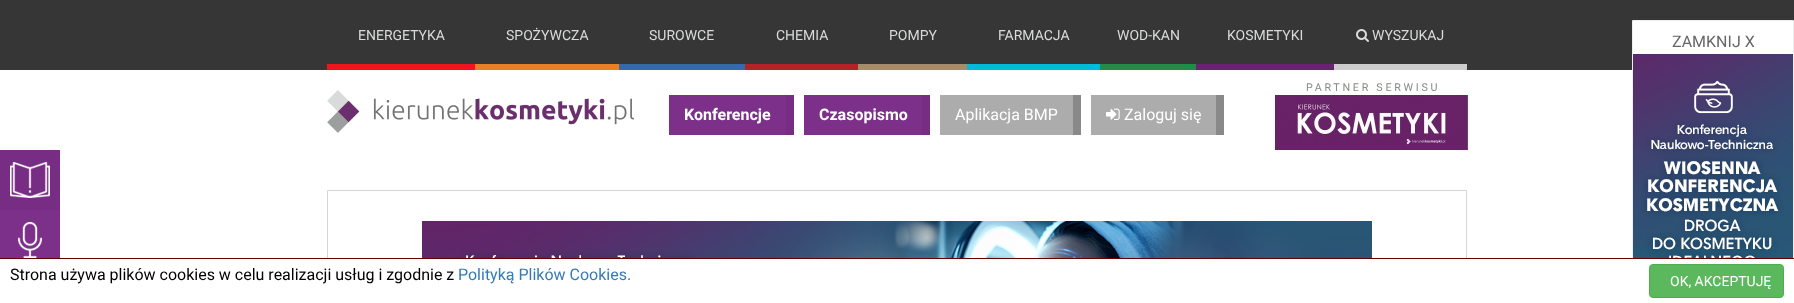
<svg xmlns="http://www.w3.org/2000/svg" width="1794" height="303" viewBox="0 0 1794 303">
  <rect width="100%" height="100%" fill="#fff"/>
  <path d="M0 0h1794v70H0z" fill="#363636"/>
  <path d="M327 64h148v6H327z" fill="#f3131f"/>
  <path d="M475 64h144v6H475z" fill="#e98024"/>
  <path d="M619 64h126v6H619z" fill="#326bad"/>
  <path d="M745 64h113v6H745z" fill="#b22328"/>
  <path d="M858 64h109v6H858z" fill="#a78b6b"/>
  <path d="M967 64h133v6H967z" fill="#00bbd7"/>
  <path d="M1100 64h96v6H1100z" fill="#248a47"/>
  <path d="M1196 64h138v6H1196z" fill="#672570"/>
  <path d="M1334 64h133v6H1334z" fill="#ccc"/>
  <image x="1356" y="29" width="13" height="13" href="img/1.png"/>
  <path d="M1633 21h160v33H1633z" fill="#fff"/>
  <path d="M1632.5 20.5h161v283H1632.5z" fill="none" stroke="#eee"/>
  <image x="1633" y="54" width="160" height="204" href="img/2.png"/>
  <image x="1273" y="95" width="196" height="55" href="img/3.png"/>
  <image x="327" y="90" width="307" height="43" href="img/4.png"/>
  <path d="M669 95h117v40H669z" fill="#7d3089"/>
  <path d="M786 95h8v40H786z" fill="#782d84"/>
  <path d="M804 95h118v40H804z" fill="#7d3089"/>
  <path d="M922 95h8v40H922z" fill="#782d84"/>
  <path d="M940 95h133v40H940z" fill="#acacac"/>
  <path d="M1073 95h8v40H1073z" fill="#898989"/>
  <path d="M1091 95h125v40H1091z" fill="#acacac"/>
  <path d="M1216 95h8v40H1216z" fill="#898989"/>
  <image x="1106" y="108" width="14" height="12" href="img/5.png"/>
  <path d="M0 150h60v60H0z" fill="#782d84"/>
  <image x="10" y="162" width="40" height="36" href="img/6.png"/>
  <path d="M0 210h60v48H0z" fill="#7d3089"/>
  <image x="18" y="222" width="24" height="36" href="img/7.png"/>
  <path d="M327.5 190.5h1139v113H327.5z" fill="none" stroke="#d4d4d4"/>
  <image x="422" y="221" width="950" height="37" href="img/8.png"/>
  <path d="M327 259h1467v44H327z" fill="#fff"/>
  <path d="M0 258h1794v1H0z" fill="#600"/>
  <rect x="1649.5" y="264.5" width="134" height="33" rx="3.5" fill="#5cb85c" stroke="#4cae4c"/>
  <g font-family="Roboto" font-size="14" fill="#d9dada">
    <text x="358" y="40">ENERGETYKA</text>
    <text x="506" y="40">SPOŻYWCZA</text>
    <text x="649" y="40">SUROWCE</text>
    <text x="776" y="40">CHEMIA</text>
    <text x="889" y="40">POMPY</text>
    <text x="998" y="40">FARMACJA</text>
    <text x="1117" y="40">WOD-KAN</text>
    <text x="1227" y="40">KOSMETYKI</text>
    <text x="1372" y="40">WYSZUKAJ</text>
  </g>
  <text x="1672" y="47" font-family="Roboto" font-size="16" fill="#666">ZAMKNIJ X</text>
  <text x="1306" y="91" font-family="Roboto" font-size="10.75" letter-spacing="2.7" fill="#898989">PARTNER SERWISU</text>
  <g font-family="Roboto" font-size="16" font-weight="bold" fill="#fff">
    <text x="684" y="120">Konferencje</text>
    <text x="819" y="120">Czasopismo</text>
  </g>
  <g font-family="Roboto" font-size="16" fill="#fff">
    <text x="955" y="120">Aplikacja BMP</text>
    <text x="1124" y="120">Zaloguj się</text>
  </g>
  <text x="10" y="280" font-family="Roboto" font-size="16" fill="#000">Strona używa plików cookies w celu realizacji usług i zgodnie z</text>
  <text x="458" y="280" font-family="Roboto" font-size="16" fill="#337ab7">Polityką Plików Cookies.</text>
  <text x="1670" y="286" font-family="Roboto" font-size="14" fill="#fff">OK, AKCEPTUJĘ</text>
</svg>
